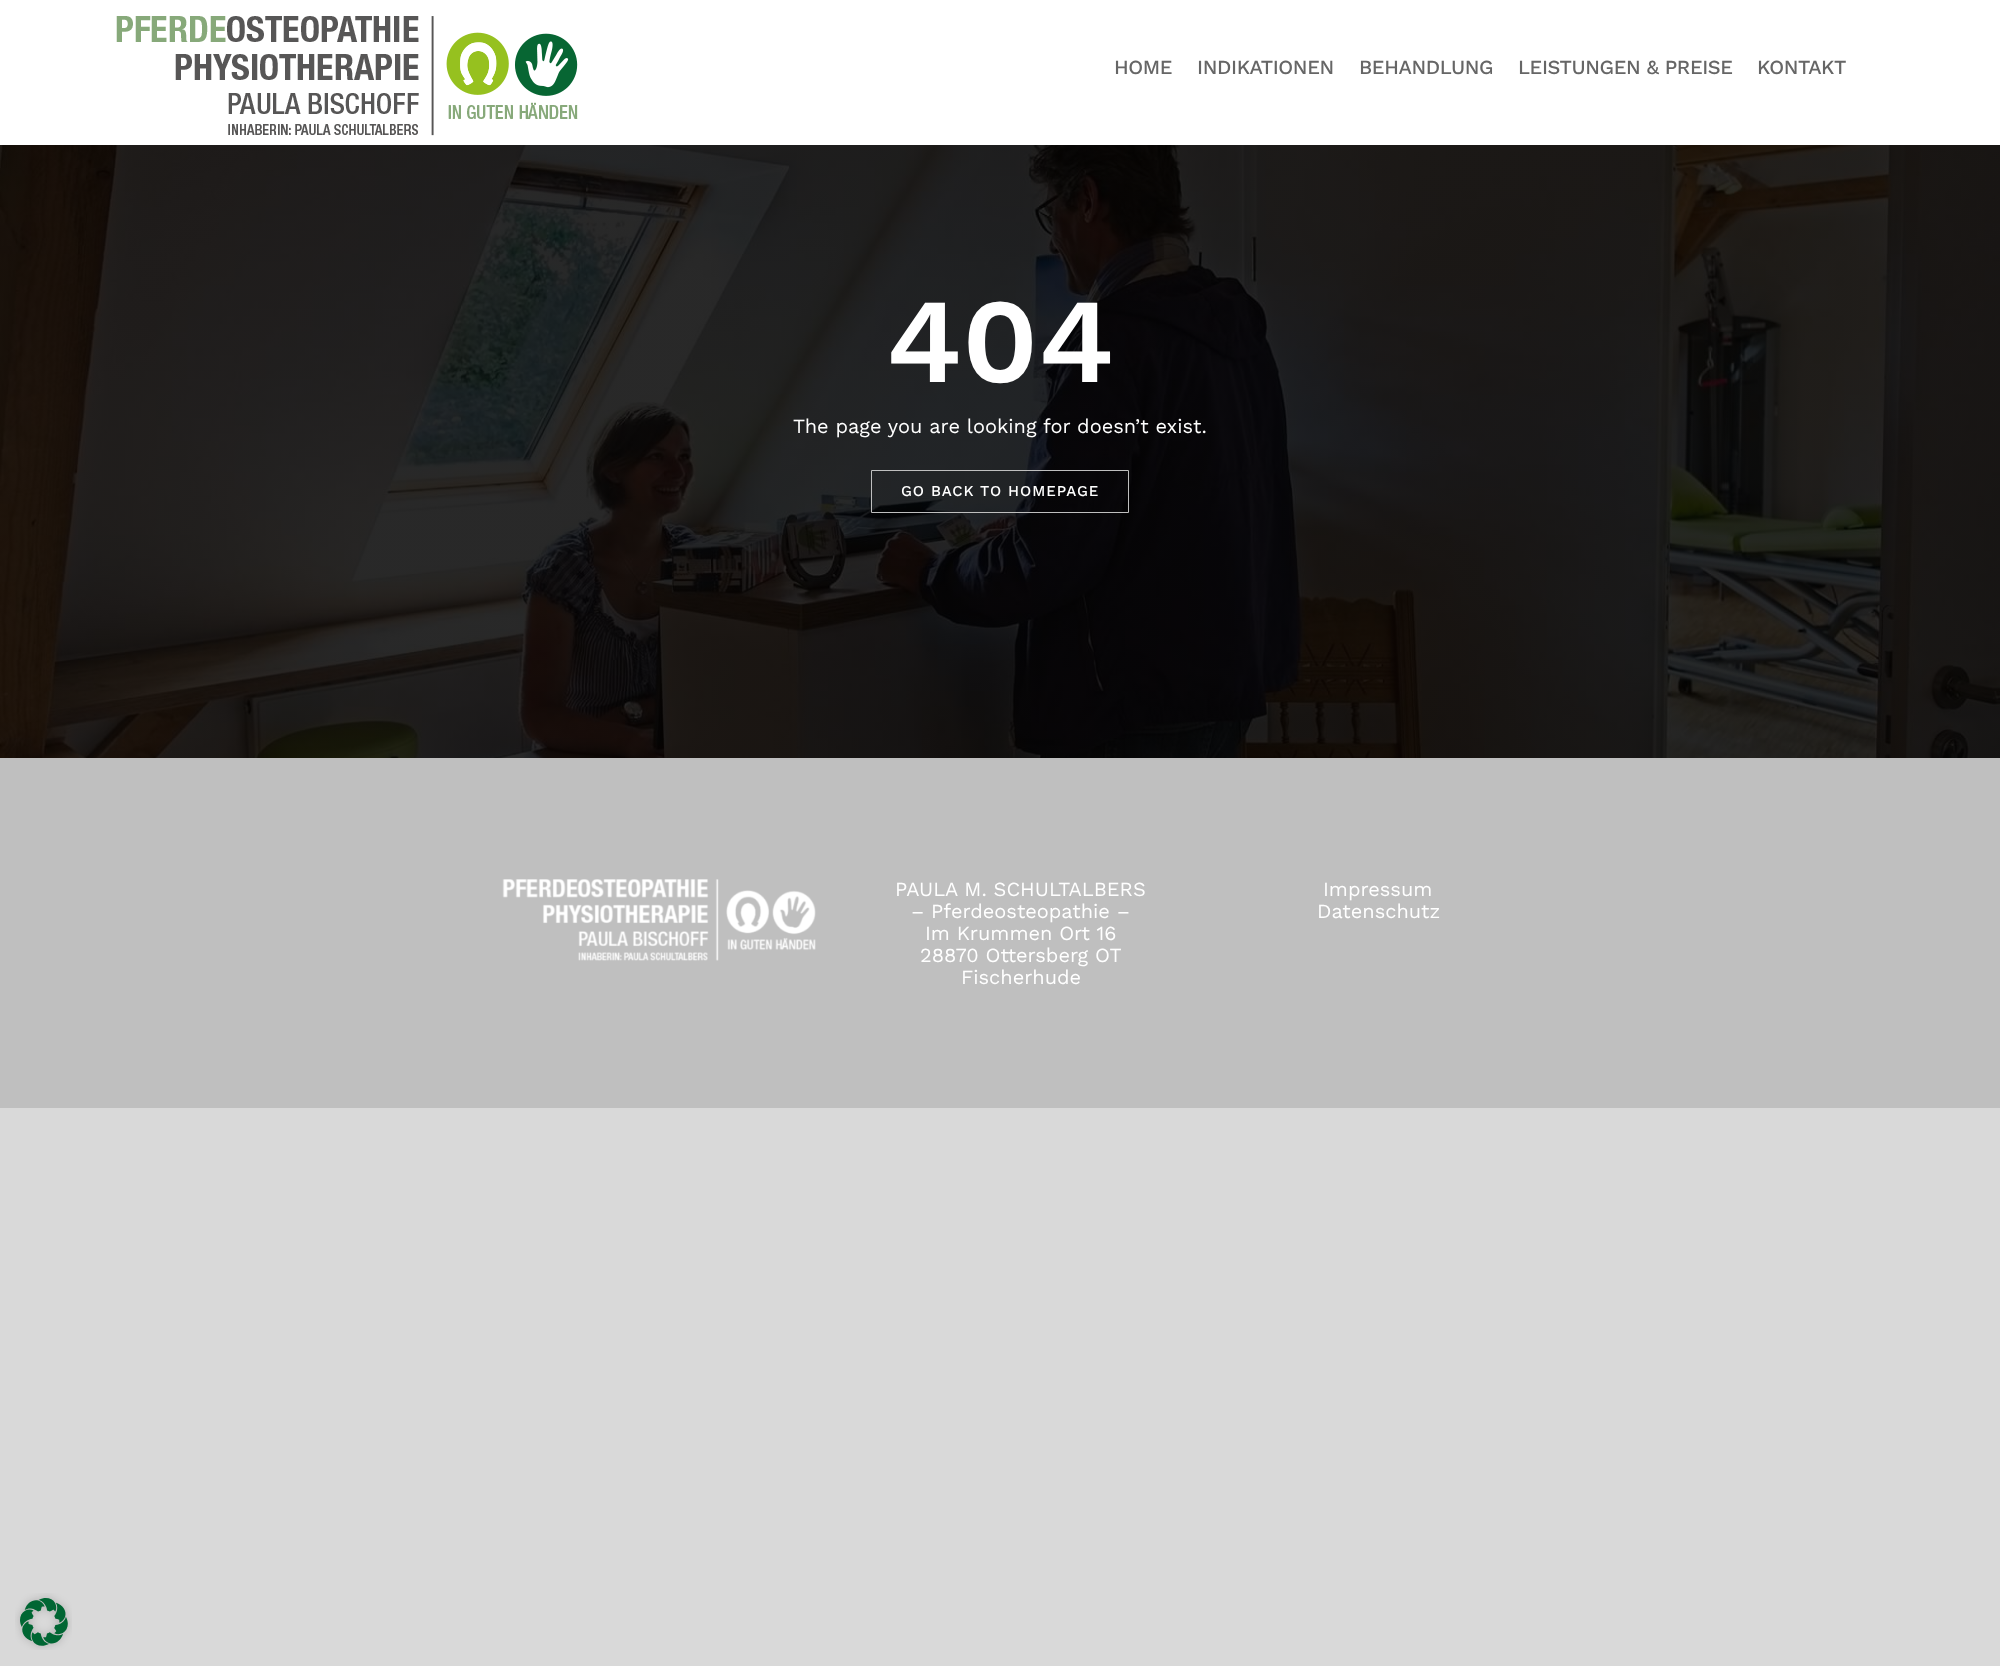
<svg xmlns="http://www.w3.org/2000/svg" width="2000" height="1666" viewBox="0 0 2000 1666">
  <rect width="100%" height="100%" fill="#d9d9d9"/>
  <path d="M0 0h2000v145H0z" fill="#fff"/>
  <image x="116" y="16" width="462" height="120" href="img/1.png"/>
  <image x="0" y="145" width="2000" height="613" href="img/2.png"/>
  <path d="M871.5 470.5h257v42H871.5z" fill="none" stroke="#bfbfbf"/>
  <path d="M0 758h2000v350H0z" fill="#bfbfbf"/>
  <image x="502" y="879" width="314" height="82" href="img/3.png"/>
  <image x="15" y="1593" width="57" height="57" href="img/4.png"/>
  <g font-family="Work Sans" font-size="20" font-weight="500" letter-spacing="-0.4" fill="#666">
    <text x="1114" y="74">HOME</text>
    <text x="1197" y="74">INDIKATIONEN</text>
    <text x="1359" y="74">BEHANDLUNG</text>
    <text x="1518" y="74">LEISTUNGEN &amp; PREISE</text>
    <text x="1757" y="74">KONTAKT</text>
  </g>
  <text x="886" y="382" font-family="Work Sans" font-size="120" font-weight="600" fill="#fff">404</text>
  <text x="793" y="433" font-family="Work Sans" font-size="20" fill="#fff">The page you are looking for doesn’t exist.</text>
  <text x="901" y="496" font-family="Work Sans" font-size="15" font-weight="500" letter-spacing="1" fill="#fff">GO BACK TO HOMEPAGE</text>
  <g font-family="Work Sans" font-size="20" fill="#fff">
    <text x="895" y="896">PAULA M. SCHULTALBERS</text>
    <text x="911" y="918">– Pferdeosteopathie –</text>
    <text x="925" y="940">Im Krummen Ort 16</text>
    <text x="920" y="962">28870 Ottersberg OT</text>
    <text x="961" y="984">Fischerhude</text>
    <text x="1323" y="896">Impressum</text>
    <text x="1317" y="918">Datenschutz</text>
  </g>
</svg>
